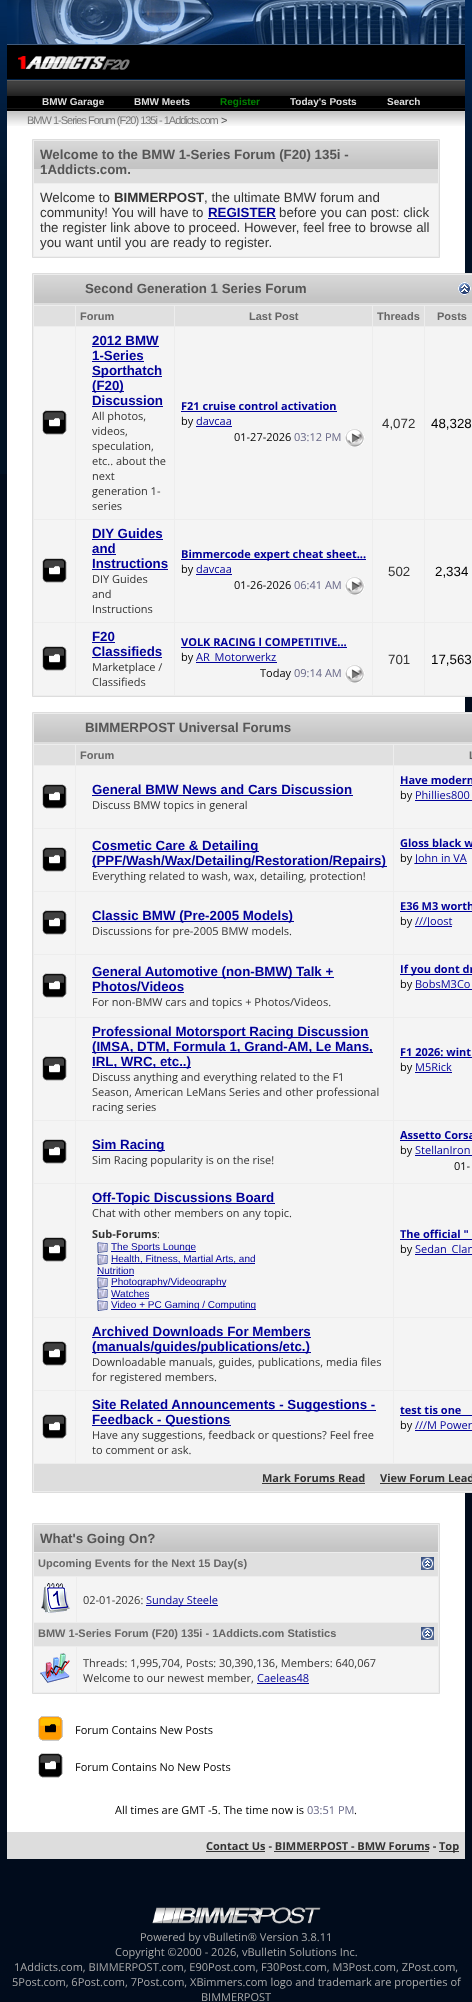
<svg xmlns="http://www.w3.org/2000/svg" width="472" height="2002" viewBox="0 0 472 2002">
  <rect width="100%" height="100%" fill="#010c1c"/>
  <image x="0" y="0" width="472" height="474" href="img/1.png"/>
  <image x="7" y="0" width="458" height="44" href="img/2.png"/>
  <path d="M7 44h458v1H7z" fill="#415c7d"/>
  <path d="M7 45h458v34H7z" fill="#000"/>
  <image x="18" y="56" width="112" height="14" href="img/3.png"/>
  <path d="M7 126h458v1706H7z" fill="#fff"/>
  <image x="7" y="80" width="458" height="46" href="img/4.png"/>
  <path d="M32.5 139.5h407v118H32.5z" fill="#ededed" stroke="#ddd"/>
  <path d="M34 169h404v14H34z" fill="#ddd"/>
  <image x="34" y="141" width="404" height="28" href="img/5.png"/>
  <path d="M34 184h404v72H34z" fill="#f4f4f4"/>
  <path d="M208 218h68v1H208z" fill="#009"/>
  <path d="M32.5 273.5h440v423H32.5z" fill="#ededed" stroke="#ddd"/>
  <path d="M34 303h438v2H34z" fill="#ddd"/>
  <image x="34" y="275" width="438" height="28" href="img/6.png"/>
  <image x="458" y="282" width="13" height="13" href="img/7.png"/>
  <path d="M34 306h41v20H34z" fill="#e0e0e0"/>
  <path d="M76 306h98v20H76z" fill="#e0e0e0"/>
  <path d="M175 306h197v20H175z" fill="#e0e0e0"/>
  <path d="M373 306h51v20H373z" fill="#e0e0e0"/>
  <path d="M425 306h47v20H425z" fill="#e0e0e0"/>
  <path d="M34 327h41v192H34z" fill="#f4f4f4"/>
  <image x="42" y="410" width="25" height="25" href="img/8.png"/>
  <path d="M76 327h98v192H76z" fill="#f4f4f4"/>
  <path d="M92 346h67v1H92z" fill="#009"/>
  <path d="M92 361h52v1H92z" fill="#009"/>
  <path d="M92 376h70v1H92z" fill="#009"/>
  <path d="M92 391h32v1H92z" fill="#009"/>
  <path d="M92 406h71v1H92z" fill="#009"/>
  <path d="M175 327h197v192H175z" fill="#f4f4f4"/>
  <path d="M181 411h156v1H181z" fill="#009"/>
  <path d="M196 426h36v1H196z" fill="#009"/>
  <image x="345" y="429" width="20" height="18" href="img/9.png"/>
  <path d="M373 327h51v192H373z" fill="#f4f4f4"/>
  <path d="M425 327h47v192H425z" fill="#f4f4f4"/>
  <path d="M34 520h41v102H34z" fill="#f4f4f4"/>
  <image x="42" y="558" width="25" height="25" href="img/8.png"/>
  <path d="M76 520h98v102H76z" fill="#f4f4f4"/>
  <path d="M92 539h71v1H92z" fill="#009"/>
  <path d="M92 554h24v1H92z" fill="#009"/>
  <path d="M92 569h76v1H92z" fill="#009"/>
  <path d="M175 520h197v102H175z" fill="#f4f4f4"/>
  <path d="M181 559h185v1H181z" fill="#009"/>
  <path d="M196 574h36v1H196z" fill="#009"/>
  <image x="345" y="577" width="20" height="18" href="img/9.png"/>
  <path d="M373 520h51v102H373z" fill="#f4f4f4"/>
  <path d="M425 520h47v102H425z" fill="#f4f4f4"/>
  <path d="M34 623h41v72H34z" fill="#f4f4f4"/>
  <image x="42" y="646" width="25" height="25" href="img/8.png"/>
  <path d="M76 623h98v72H76z" fill="#f4f4f4"/>
  <path d="M92 642h23v1H92z" fill="#009"/>
  <path d="M92 657h70v1H92z" fill="#009"/>
  <path d="M175 623h197v72H175z" fill="#f4f4f4"/>
  <path d="M181 647h166v1H181z" fill="#009"/>
  <path d="M196 662h81v1H196z" fill="#009"/>
  <image x="345" y="665" width="20" height="18" href="img/9.png"/>
  <path d="M373 623h51v72H373z" fill="#f4f4f4"/>
  <path d="M425 623h47v72H425z" fill="#f4f4f4"/>
  <path d="M32.5 712.5h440v780H32.5z" fill="#ededed" stroke="#ddd"/>
  <path d="M34 742h438v2H34z" fill="#ddd"/>
  <image x="34" y="714" width="438" height="28" href="img/6.png"/>
  <path d="M34 745h41v20H34z" fill="#e0e0e0"/>
  <path d="M76 745h317v20H76z" fill="#e0e0e0"/>
  <path d="M394 745h78v20H394z" fill="#e0e0e0"/>
  <path d="M34 766h41v62H34z" fill="#f4f4f4"/>
  <image x="42" y="784" width="25" height="25" href="img/8.png"/>
  <path d="M76 766h317v62H76z" fill="#f4f4f4"/>
  <path d="M92 795h261v1H92z" fill="#009"/>
  <path d="M394 766h78v62H394z" fill="#f4f4f4"/>
  <path d="M400 785h72v1H400z" fill="#009"/>
  <path d="M415 800h57v1H415z" fill="#009"/>
  <path d="M34 829h41v62H34z" fill="#f4f4f4"/>
  <image x="42" y="847" width="25" height="25" href="img/8.png"/>
  <path d="M76 829h317v62H76z" fill="#f4f4f4"/>
  <path d="M92 851h167v1H92z" fill="#009"/>
  <path d="M92 866h295v1H92z" fill="#009"/>
  <path d="M394 829h78v62H394z" fill="#f4f4f4"/>
  <path d="M400 848h72v1H400z" fill="#009"/>
  <path d="M415 863h52v1H415z" fill="#009"/>
  <path d="M34 892h41v62H34z" fill="#f4f4f4"/>
  <image x="42" y="910" width="25" height="25" href="img/8.png"/>
  <path d="M76 892h317v62H76z" fill="#f4f4f4"/>
  <path d="M92 921h202v1H92z" fill="#009"/>
  <path d="M394 892h78v62H394z" fill="#f4f4f4"/>
  <path d="M400 911h72v1H400z" fill="#009"/>
  <path d="M415 926h37v1H415z" fill="#009"/>
  <path d="M34 955h41v62H34z" fill="#f4f4f4"/>
  <image x="42" y="973" width="25" height="25" href="img/8.png"/>
  <path d="M76 955h317v62H76z" fill="#f4f4f4"/>
  <path d="M92 977h242v1H92z" fill="#009"/>
  <path d="M92 992h92v1H92z" fill="#009"/>
  <path d="M394 955h78v62H394z" fill="#f4f4f4"/>
  <path d="M400 974h72v1H400z" fill="#009"/>
  <path d="M415 989h57v1H415z" fill="#009"/>
  <path d="M34 1018h41v102H34z" fill="#f4f4f4"/>
  <image x="42" y="1056" width="25" height="25" href="img/8.png"/>
  <path d="M76 1018h317v102H76z" fill="#f4f4f4"/>
  <path d="M92 1037h277v1H92z" fill="#009"/>
  <path d="M92 1052h281v1H92z" fill="#009"/>
  <path d="M92 1067h99v1H92z" fill="#009"/>
  <path d="M394 1018h78v102H394z" fill="#f4f4f4"/>
  <path d="M400 1057h72v1H400z" fill="#009"/>
  <path d="M415 1072h37v1H415z" fill="#009"/>
  <path d="M34 1121h41v62H34z" fill="#f4f4f4"/>
  <image x="42" y="1139" width="25" height="25" href="img/8.png"/>
  <path d="M76 1121h317v62H76z" fill="#f4f4f4"/>
  <path d="M92 1150h73v1H92z" fill="#009"/>
  <path d="M394 1121h78v62H394z" fill="#f4f4f4"/>
  <path d="M400 1140h72v1H400z" fill="#009"/>
  <path d="M415 1155h57v1H415z" fill="#009"/>
  <path d="M34 1184h41v133H34z" fill="#f4f4f4"/>
  <image x="42" y="1237" width="25" height="25" href="img/8.png"/>
  <path d="M76 1184h317v133H76z" fill="#f4f4f4"/>
  <path d="M92 1203h183v1H92z" fill="#009"/>
  <image x="97" y="1242" width="11" height="11" href="img/10.png"/>
  <path d="M111 1251h85v1H111z" fill="#009"/>
  <image x="97" y="1254" width="11" height="11" href="img/10.png"/>
  <path d="M111 1263h144v1H111z" fill="#009"/>
  <path d="M97 1275h37v1H97z" fill="#009"/>
  <image x="97" y="1277" width="11" height="11" href="img/10.png"/>
  <path d="M111 1286h115v1H111z" fill="#009"/>
  <image x="97" y="1288" width="11" height="11" href="img/10.png"/>
  <path d="M111 1298h38v1H111z" fill="#009"/>
  <image x="97" y="1300" width="11" height="11" href="img/10.png"/>
  <path d="M111 1309h145v1H111z" fill="#009"/>
  <path d="M394 1184h78v133H394z" fill="#f4f4f4"/>
  <path d="M400 1239h72v1H400z" fill="#009"/>
  <path d="M415 1254h57v1H415z" fill="#009"/>
  <path d="M34 1318h41v72H34z" fill="#f4f4f4"/>
  <image x="42" y="1341" width="25" height="25" href="img/8.png"/>
  <path d="M76 1318h317v72H76z" fill="#f4f4f4"/>
  <path d="M92 1337h219v1H92z" fill="#009"/>
  <path d="M92 1352h219v1H92z" fill="#009"/>
  <path d="M394 1318h78v72H394z" fill="#f4f4f4"/>
  <path d="M34 1391h41v72H34z" fill="#f4f4f4"/>
  <image x="42" y="1414" width="25" height="25" href="img/8.png"/>
  <path d="M76 1391h317v72H76z" fill="#f4f4f4"/>
  <path d="M92 1410h284v1H92z" fill="#009"/>
  <path d="M92 1425h139v1H92z" fill="#009"/>
  <path d="M394 1391h78v72H394z" fill="#f4f4f4"/>
  <path d="M400 1415h72v1H400z" fill="#009"/>
  <path d="M415 1430h57v1H415z" fill="#009"/>
  <path d="M34 1464h438v27H34z" fill="#ddd"/>
  <path d="M262 1483h103v1H262z" fill="#333"/>
  <path d="M380 1483h92v1H380z" fill="#333"/>
  <path d="M32.5 1523.5h407v170H32.5z" fill="#ededed" stroke="#ddd"/>
  <image x="34" y="1525" width="404" height="27" href="img/11.png"/>
  <path d="M34 1553h404v23H34z" fill="#e0e0e0"/>
  <image x="421" y="1557" width="13" height="13" href="img/12.png"/>
  <path d="M34 1577h42v45H34z" fill="#f4f4f4"/>
  <image x="41" y="1583" width="29" height="30" href="img/13.png"/>
  <path d="M77 1577h361v45H77z" fill="#f4f4f4"/>
  <path d="M146 1605h72v1H146z" fill="#009"/>
  <path d="M34 1623h404v23H34z" fill="#e0e0e0"/>
  <image x="421" y="1627" width="13" height="13" href="img/12.png"/>
  <path d="M34 1647h42v45H34z" fill="#f4f4f4"/>
  <image x="40" y="1653" width="30" height="30" href="img/14.png"/>
  <path d="M77 1647h361v45H77z" fill="#f4f4f4"/>
  <path d="M257 1683h52v1H257z" fill="#009"/>
  <image x="38" y="1716" width="25" height="25" href="img/15.png"/>
  <image x="38" y="1753" width="25" height="25" href="img/16.png"/>
  <path d="M7 1832h458v27H7z" fill="#ddd"/>
  <path d="M206 1851h59v1H206z" fill="#333"/>
  <path d="M274 1851h155v1H274z" fill="#333"/>
  <path d="M439 1851h20v1H439z" fill="#333"/>
  <image x="152" y="1907" width="169" height="17" href="img/17.png"/>
  <g font-family="Liberation Sans" font-size="10" font-weight="bold" fill="#ddd">
    <text x="42" y="105">BMW Garage</text>
    <text x="134" y="105">BMW Meets</text>
  </g>
  <text x="220" y="105" font-family="Liberation Sans" font-size="10" font-weight="bold" fill="#008000">Register</text>
  <g font-family="Liberation Sans" font-size="10" font-weight="bold" fill="#ddd">
    <text x="290" y="105">Today's Posts</text>
    <text x="387" y="105">Search</text>
  </g>
  <text x="27" y="124" font-family="Liberation Sans" font-size="11" letter-spacing="-1" fill="#777">BMW 1-Series Forum (F20) 135i - 1Addicts.com</text>
  <text x="221" y="124" font-family="Liberation Sans" font-size="11" fill="#555">&gt;</text>
  <g font-family="Liberation Sans" font-size="13.3" font-weight="bold" fill="#555">
    <text x="40" y="159">Welcome to the BMW 1-Series Forum (F20) 135i -</text>
    <text x="40" y="174">1Addicts.com.</text>
  </g>
  <text x="40" y="202" font-family="Liberation Sans" font-size="13.3" fill="#333">Welcome to</text>
  <text x="114" y="202" font-family="Liberation Sans" font-size="13.3" font-weight="bold" fill="#333">BIMMERPOST</text>
  <g font-family="Liberation Sans" font-size="13.3" fill="#333">
    <text x="204" y="202">, the ultimate BMW forum and</text>
    <text x="40" y="217">community! You will have to</text>
  </g>
  <text x="208" y="217" font-family="Liberation Sans" font-size="13.3" font-weight="bold" fill="#009">REGISTER</text>
  <g font-family="Liberation Sans" font-size="13.3" fill="#333">
    <text x="279" y="217">before you can post: click</text>
    <text x="40" y="232">the register link above to proceed. However, feel free to browse all</text>
    <text x="40" y="247">you want until you are ready to register.</text>
  </g>
  <text x="85" y="293" font-family="Liberation Sans" font-size="13.3" font-weight="bold" fill="#555">Second Generation 1 Series Forum</text>
  <g font-family="Liberation Sans" font-size="11" font-weight="bold" fill="#666">
    <text x="80" y="320">Forum</text>
    <text x="249" y="320">Last Post</text>
    <text x="377" y="320">Threads</text>
    <text x="437" y="320">Posts</text>
  </g>
  <g font-family="Liberation Sans" font-size="13.3" font-weight="bold" fill="#009">
    <text x="92" y="345">2012 BMW</text>
    <text x="92" y="360">1-Series</text>
    <text x="92" y="375">Sporthatch</text>
    <text x="92" y="390">(F20)</text>
    <text x="92" y="405">Discussion</text>
  </g>
  <g font-family="Open Sans" font-size="11" fill="#333">
    <text x="92" y="420">All photos,</text>
    <text x="92" y="435">videos,</text>
    <text x="92" y="450">speculation,</text>
    <text x="92" y="465">etc.. about the</text>
    <text x="92" y="480">next</text>
    <text x="92" y="495">generation 1-</text>
    <text x="92" y="510">series</text>
  </g>
  <text x="181" y="410" font-family="Open Sans" font-size="11" font-weight="bold" fill="#009">F21 cruise control activation</text>
  <text x="181" y="425" font-family="Open Sans" font-size="11" fill="#000">by</text>
  <text x="196" y="425" font-family="Open Sans" font-size="11" fill="#009">davcaa</text>
  <text x="234" y="441" font-family="Open Sans" font-size="11" fill="#000">01-27-2026</text>
  <text x="294" y="441" font-family="Open Sans" font-size="11" fill="#666686">03:12 PM</text>
  <text x="382" y="428" font-family="Liberation Sans" font-size="13.3" fill="#333">4,072</text>
  <text x="431" y="428" font-family="Liberation Sans" font-size="13.3" fill="#000">48,328</text>
  <g font-family="Liberation Sans" font-size="13.3" font-weight="bold" fill="#009">
    <text x="92" y="538">DIY Guides</text>
    <text x="92" y="553">and</text>
    <text x="92" y="568">Instructions</text>
  </g>
  <g font-family="Open Sans" font-size="11" fill="#333">
    <text x="92" y="583">DIY Guides</text>
    <text x="92" y="598">and</text>
    <text x="92" y="613">Instructions</text>
  </g>
  <text x="181" y="558" font-family="Open Sans" font-size="11" font-weight="bold" fill="#009">Bimmercode expert cheat sheet...</text>
  <text x="181" y="573" font-family="Open Sans" font-size="11" fill="#000">by</text>
  <text x="196" y="573" font-family="Open Sans" font-size="11" fill="#009">davcaa</text>
  <text x="234" y="589" font-family="Open Sans" font-size="11" fill="#000">01-26-2026</text>
  <text x="294" y="589" font-family="Open Sans" font-size="11" fill="#666686">06:41 AM</text>
  <text x="388" y="576" font-family="Liberation Sans" font-size="13.3" fill="#333">502</text>
  <text x="435" y="576" font-family="Liberation Sans" font-size="13.3" fill="#000">2,334</text>
  <g font-family="Liberation Sans" font-size="13.3" font-weight="bold" fill="#009">
    <text x="92" y="641">F20</text>
    <text x="92" y="656">Classifieds</text>
  </g>
  <g font-family="Open Sans" font-size="11" fill="#333">
    <text x="92" y="671">Marketplace /</text>
    <text x="92" y="686">Classifieds</text>
  </g>
  <text x="181" y="646" font-family="Open Sans" font-size="11" font-weight="bold" fill="#009">VOLK RACING l COMPETITIVE...</text>
  <text x="181" y="661" font-family="Open Sans" font-size="11" fill="#000">by</text>
  <text x="196" y="661" font-family="Open Sans" font-size="11" fill="#009">AR_Motorwerkz</text>
  <text x="260" y="677" font-family="Open Sans" font-size="11" fill="#000">Today</text>
  <text x="294" y="677" font-family="Open Sans" font-size="11" fill="#666686">09:14 AM</text>
  <text x="388" y="664" font-family="Liberation Sans" font-size="13.3" fill="#333">701</text>
  <text x="431" y="664" font-family="Liberation Sans" font-size="13.3" fill="#000">17,563</text>
  <text x="85" y="732" font-family="Liberation Sans" font-size="13.3" font-weight="bold" fill="#555">BIMMERPOST Universal Forums</text>
  <g font-family="Liberation Sans" font-size="11" font-weight="bold" fill="#666">
    <text x="80" y="759">Forum</text>
    <text x="469" y="759">L</text>
  </g>
  <text x="92" y="794" font-family="Liberation Sans" font-size="13.3" font-weight="bold" fill="#009">General BMW News and Cars Discussion</text>
  <text x="92" y="809" font-family="Open Sans" font-size="11" fill="#333">Discuss BMW topics in general</text>
  <text x="400" y="784" font-family="Open Sans" font-size="11" font-weight="bold" fill="#009">Have modern</text>
  <text x="400" y="799" font-family="Open Sans" font-size="11" fill="#000">by</text>
  <text x="415" y="799" font-family="Open Sans" font-size="11" fill="#009">Phillies800</text>
  <g font-family="Liberation Sans" font-size="13.3" font-weight="bold" fill="#009">
    <text x="92" y="850">Cosmetic Care &amp; Detailing</text>
    <text x="92" y="865">(PPF/Wash/Wax/Detailing/Restoration/Repairs)</text>
  </g>
  <text x="92" y="880" font-family="Open Sans" font-size="11" fill="#333">Everything related to wash, wax, detailing, protection!</text>
  <text x="400" y="847" font-family="Open Sans" font-size="11" font-weight="bold" fill="#009">Gloss black w</text>
  <text x="400" y="862" font-family="Open Sans" font-size="11" fill="#000">by</text>
  <text x="415" y="862" font-family="Open Sans" font-size="11" fill="#009">John in VA</text>
  <text x="92" y="920" font-family="Liberation Sans" font-size="13.3" font-weight="bold" fill="#009">Classic BMW (Pre-2005 Models)</text>
  <text x="92" y="935" font-family="Open Sans" font-size="11" fill="#333">Discussions for pre-2005 BMW models.</text>
  <text x="400" y="910" font-family="Open Sans" font-size="11" font-weight="bold" fill="#009">E36 M3 worth</text>
  <text x="400" y="925" font-family="Open Sans" font-size="11" fill="#000">by</text>
  <text x="415" y="925" font-family="Open Sans" font-size="11" fill="#009">///Joost</text>
  <g font-family="Liberation Sans" font-size="13.3" font-weight="bold" fill="#009">
    <text x="92" y="976">General Automotive (non-BMW) Talk +</text>
    <text x="92" y="991">Photos/Videos</text>
  </g>
  <text x="92" y="1006" font-family="Open Sans" font-size="11" fill="#333">For non-BMW cars and topics + Photos/Videos.</text>
  <text x="400" y="973" font-family="Open Sans" font-size="11" font-weight="bold" fill="#009">If you dont dr</text>
  <text x="400" y="988" font-family="Open Sans" font-size="11" fill="#000">by</text>
  <text x="415" y="988" font-family="Open Sans" font-size="11" fill="#009">BobsM3Co</text>
  <g font-family="Liberation Sans" font-size="13.3" font-weight="bold" fill="#009">
    <text x="92" y="1036">Professional Motorsport Racing Discussion</text>
    <text x="92" y="1051">(IMSA, DTM, Formula 1, Grand-AM, Le Mans,</text>
    <text x="92" y="1066">IRL, WRC, etc..)</text>
  </g>
  <g font-family="Open Sans" font-size="11" fill="#333">
    <text x="92" y="1081">Discuss anything and everything related to the F1</text>
    <text x="92" y="1096">Season, American LeMans Series and other professional</text>
    <text x="92" y="1111">racing series</text>
  </g>
  <text x="400" y="1056" font-family="Open Sans" font-size="11" font-weight="bold" fill="#009">F1 2026: wint</text>
  <text x="400" y="1071" font-family="Open Sans" font-size="11" fill="#000">by</text>
  <text x="415" y="1071" font-family="Open Sans" font-size="11" fill="#009">M5Rick</text>
  <text x="92" y="1149" font-family="Liberation Sans" font-size="13.3" font-weight="bold" fill="#009">Sim Racing</text>
  <text x="92" y="1164" font-family="Open Sans" font-size="11" fill="#333">Sim Racing popularity is on the rise!</text>
  <text x="400" y="1139" font-family="Open Sans" font-size="11" font-weight="bold" fill="#009">Assetto Corsa</text>
  <text x="400" y="1154" font-family="Open Sans" font-size="11" fill="#000">by</text>
  <text x="415" y="1154" font-family="Open Sans" font-size="11" fill="#009">StellanIron</text>
  <text x="454" y="1170" font-family="Open Sans" font-size="11" fill="#000">01-</text>
  <text x="92" y="1202" font-family="Liberation Sans" font-size="13.3" font-weight="bold" fill="#009">Off-Topic Discussions Board</text>
  <text x="92" y="1217" font-family="Open Sans" font-size="11" fill="#333">Chat with other members on any topic.</text>
  <text x="92" y="1238" font-family="Open Sans" font-size="11" font-weight="bold" fill="#333">Sub-Forums</text>
  <text x="157" y="1238" font-family="Open Sans" font-size="11" fill="#333">:</text>
  <g font-family="Liberation Sans" font-size="10" fill="#009">
    <text x="111" y="1250">The Sports Lounge</text>
    <text x="111" y="1262">Health, Fitness, Martial Arts, and</text>
    <text x="97" y="1274">Nutrition</text>
    <text x="111" y="1285">Photography/Videography</text>
    <text x="111" y="1297">Watches</text>
    <text x="111" y="1308">Video + PC Gaming / Computing</text>
  </g>
  <text x="400" y="1238" font-family="Open Sans" font-size="11" font-weight="bold" fill="#009">The official "</text>
  <text x="400" y="1253" font-family="Open Sans" font-size="11" fill="#000">by</text>
  <text x="415" y="1253" font-family="Open Sans" font-size="11" fill="#009">Sedan_Clan</text>
  <g font-family="Liberation Sans" font-size="13.3" font-weight="bold" fill="#009">
    <text x="92" y="1336">Archived Downloads For Members</text>
    <text x="92" y="1351">(manuals/guides/publications/etc.)</text>
  </g>
  <g font-family="Open Sans" font-size="11" fill="#333">
    <text x="92" y="1366">Downloadable manuals, guides, publications, media files</text>
    <text x="92" y="1381">for registered members.</text>
  </g>
  <g font-family="Liberation Sans" font-size="13.3" font-weight="bold" fill="#009">
    <text x="92" y="1409">Site Related Announcements - Suggestions -</text>
    <text x="92" y="1424">Feedback - Questions</text>
  </g>
  <g font-family="Open Sans" font-size="11" fill="#333">
    <text x="92" y="1439">Have any suggestions, feedback or questions? Feel free</text>
    <text x="92" y="1454">to comment or ask.</text>
  </g>
  <text x="400" y="1414" font-family="Open Sans" font-size="11" font-weight="bold" fill="#009">test tis one</text>
  <text x="400" y="1429" font-family="Open Sans" font-size="11" fill="#000">by</text>
  <text x="415" y="1429" font-family="Open Sans" font-size="11" fill="#009">///M Power</text>
  <g font-family="Open Sans" font-size="11" font-weight="bold" fill="#333">
    <text x="262" y="1482">Mark Forums Read</text>
    <text x="380" y="1482">View Forum Lead</text>
  </g>
  <text x="40" y="1543" font-family="Liberation Sans" font-size="13.3" font-weight="bold" fill="#555">What's Going On?</text>
  <text x="38" y="1567" font-family="Liberation Sans" font-size="11" font-weight="bold" fill="#666">Upcoming Events for the Next 15 Day(s)</text>
  <text x="83" y="1604" font-family="Open Sans" font-size="11" fill="#333">02-01-2026:</text>
  <text x="146" y="1604" font-family="Open Sans" font-size="11" fill="#009">Sunday Steele</text>
  <text x="38" y="1637" font-family="Liberation Sans" font-size="11" font-weight="bold" fill="#666">BMW 1-Series Forum (F20) 135i - 1Addicts.com Statistics</text>
  <g font-family="Open Sans" font-size="11" fill="#333">
    <text x="83" y="1667">Threads: 1,995,704, Posts: 30,390,136, Members: 640,067</text>
    <text x="83" y="1682">Welcome to our newest member,</text>
  </g>
  <text x="257" y="1682" font-family="Open Sans" font-size="11" fill="#009">Caeleas48</text>
  <g font-family="Open Sans" font-size="11" fill="#000">
    <text x="75" y="1734">Forum Contains New Posts</text>
    <text x="75" y="1771">Forum Contains No New Posts</text>
    <text x="115" y="1814">All times are GMT -5. The time now is</text>
  </g>
  <text x="307" y="1814" font-family="Open Sans" font-size="11" fill="#666686">03:51 PM</text>
  <text x="354" y="1814" font-family="Open Sans" font-size="11" fill="#000">.</text>
  <g font-family="Open Sans" font-size="11" font-weight="bold" fill="#333">
    <text x="206" y="1850">Contact Us - BIMMERPOST - BMW Forums -</text>
    <text x="439" y="1850">Top</text>
  </g>
  <g font-family="Open Sans" font-size="11" fill="#aaa">
    <text x="140" y="1941">Powered by vBulletin® Version 3.8.11</text>
    <text x="115" y="1956">Copyright ©2000 - 2026, vBulletin Solutions Inc.</text>
    <text x="14" y="1971">1Addicts.com, BIMMERPOST.com, E90Post.com, F30Post.com, M3Post.com, ZPost.com,</text>
    <text x="12" y="1986">5Post.com, 6Post.com, 7Post.com, XBimmers.com logo and trademark are properties of</text>
    <text x="201" y="2001">BIMMERPOST</text>
  </g>
</svg>
